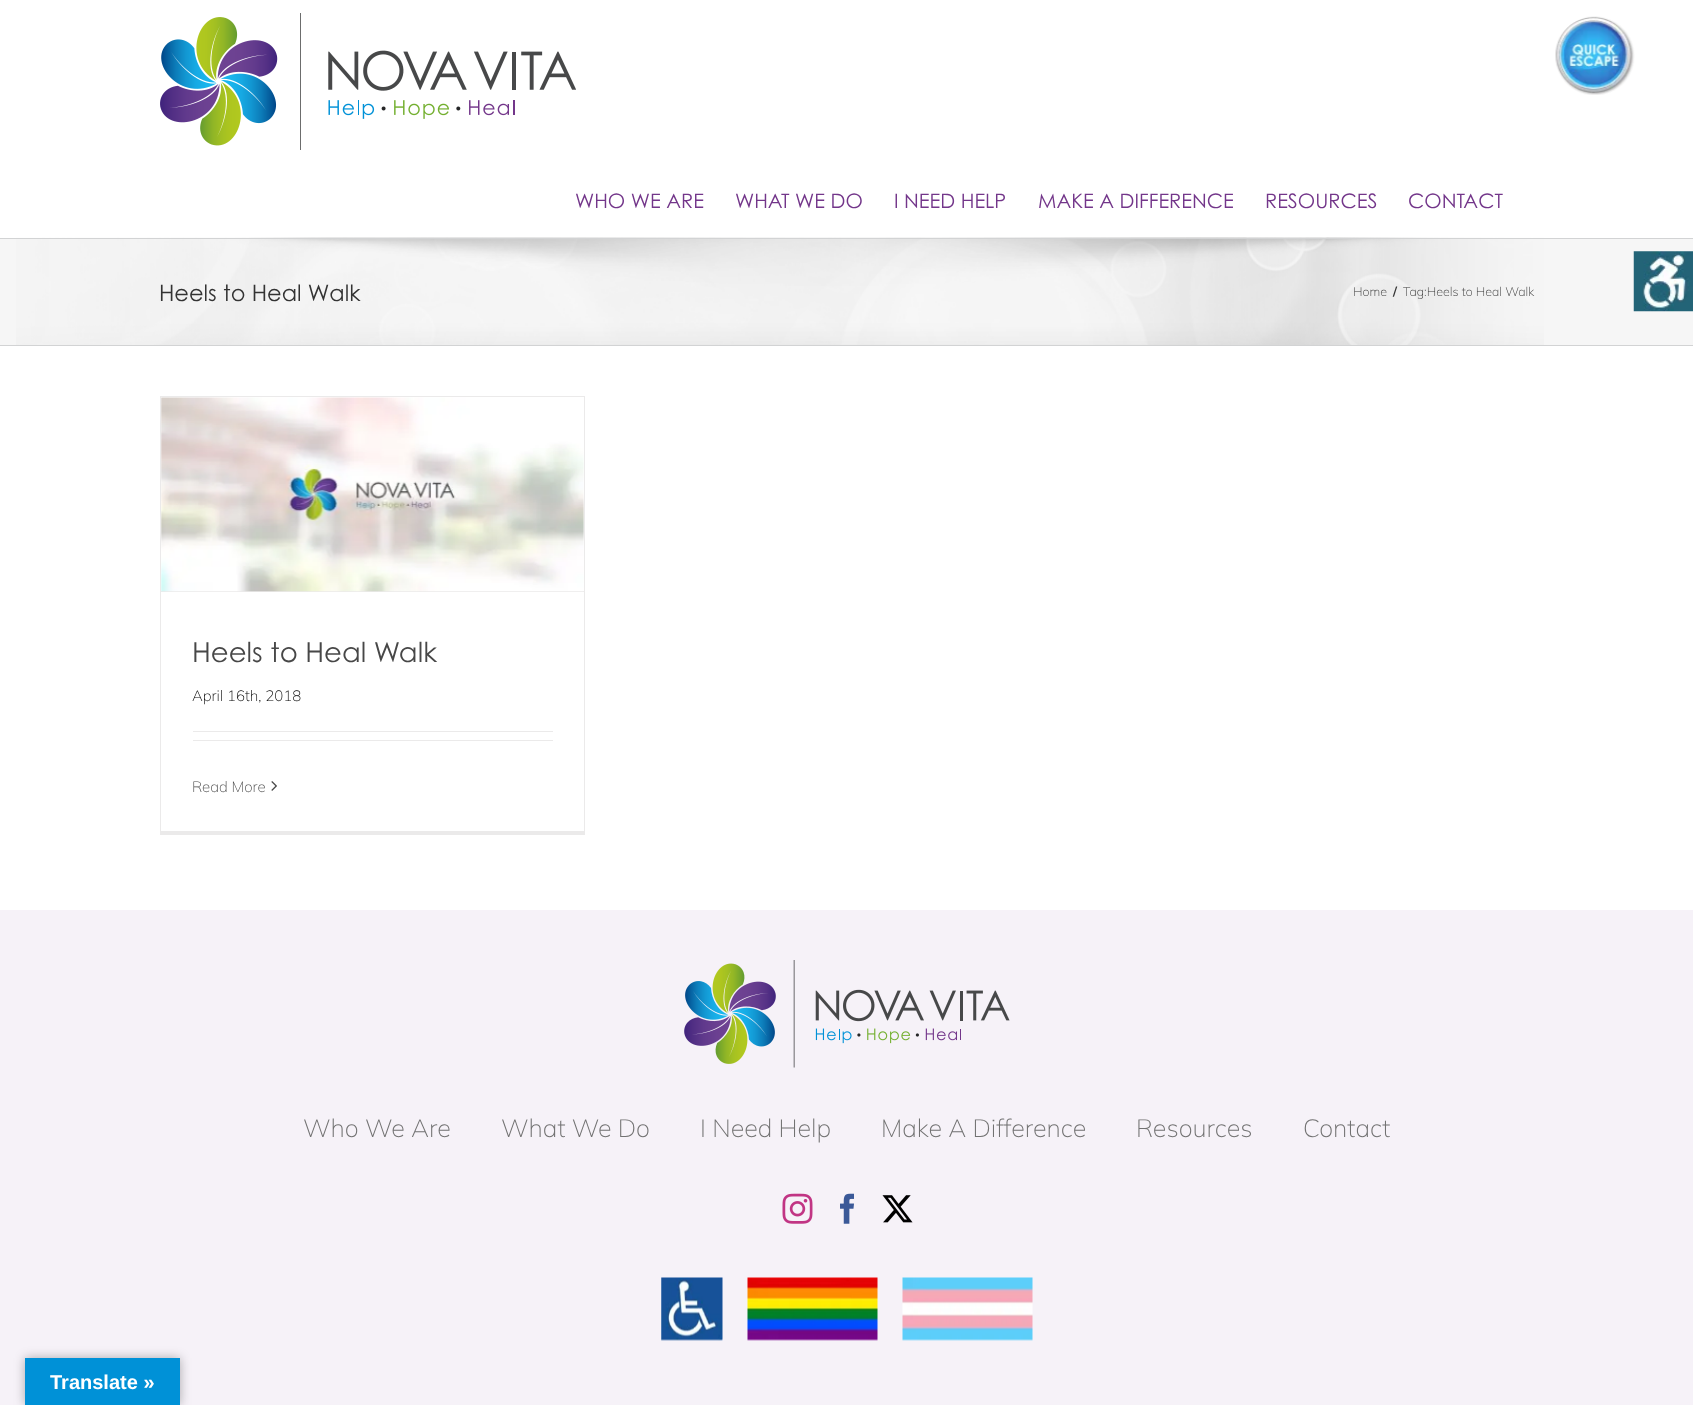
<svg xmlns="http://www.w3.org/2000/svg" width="1693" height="1405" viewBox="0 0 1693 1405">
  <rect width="100%" height="100%" fill="#fff"/>
  <image x="160" y="13" width="416" height="137" href="img/1.png"/>
  <image x="1555" y="16" width="80" height="79" href="img/2.png"/>
  <path d="M0 239h1693v106H0z" fill="#f6f6f6"/>
  <image x="16" y="237" width="1528" height="108" href="img/3.png"/>
  <path d="M0 238h1693v1H0z" fill="#d2d3d4"/>
  <path d="M0 345h1693v1H0z" fill="#d2d3d4"/>
  <path d="M160 396h425v1H160z" fill="#ebeaea"/>
  <path d="M584 396h1v439H584z" fill="#ebeaea"/>
  <path d="M160 831h425v4H160z" fill="#ebeaea"/>
  <path d="M160 396h1v439H160z" fill="#ebeaea"/>
  <path d="M161 591h423v1H161z" fill="#ebeaea"/>
  <image x="161" y="397" width="423" height="195" href="img/4.png"/>
  <path d="M193 731h360v1H193z" fill="#ebeaea"/>
  <path d="M193 740h360v1H193z" fill="#ebeaea"/>
  <image x="271" y="781" width="6" height="10" href="img/5.png"/>
  <path d="M0 910h1693v495H0z" fill="#f6f2f8"/>
  <image x="684" y="960" width="326" height="108" href="img/6.png"/>
  <image x="782" y="1193" width="31" height="31" href="img/7.png"/>
  <image x="840" y="1193" width="14" height="31" href="img/8.png"/>
  <image x="882" y="1195" width="31" height="28" href="img/9.png"/>
  <image x="661" y="1277" width="62" height="64" href="img/10.png"/>
  <image x="747" y="1277" width="131" height="64" href="img/11.png"/>
  <image x="902" y="1277" width="131" height="64" href="img/12.png"/>
  <image x="1633" y="251" width="60" height="61" href="img/13.png"/>
  <path d="M25 1358h155v47H25z" fill="#0000004d" filter="blur(5.5px)"/>
  <path d="M25 1358h155v47H25z" fill="#0091d7"/>
  <g font-family="'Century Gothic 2'" font-size="20" fill="#73368a">
    <text x="575" y="208">WHO WE ARE</text>
    <text x="735" y="208">WHAT WE DO</text>
    <text x="894" y="208">I NEED HELP</text>
    <text x="1038" y="208">MAKE A DIFFERENCE</text>
    <text x="1265" y="208">RESOURCES</text>
    <text x="1408" y="208">CONTACT</text>
  </g>
  <text x="159" y="301" font-family="Century Gothic" font-size="22.5" fill="#333">Heels to Heal Walk</text>
  <text x="1353" y="296" font-family="Mulish" font-size="12.5" font-weight="200" fill="#333">Home</text>
  <text x="1393" y="296" font-family="Mulish" font-size="12.5" font-weight="bold" fill="#333">/</text>
  <text x="1403" y="296" font-family="Mulish" font-size="12.5" font-weight="200" fill="#333">Tag:Heels to Heal Walk</text>
  <text x="192" y="662" font-family="'Century Gothic 2'" font-size="27.5" fill="#474747">Heels to Heal Walk</text>
  <text x="192" y="701" font-family="Mulish" font-size="15" font-weight="200" fill="#000">April 16th, 2018</text>
  <text x="192" y="792" font-family="Mulish" font-size="15" font-weight="200" fill="#474747">Read More</text>
  <g font-family="Mulish" font-size="25" font-weight="200" fill="#727272">
    <text x="303" y="1137">Who We Are</text>
    <text x="501" y="1137">What We Do</text>
    <text x="700" y="1137">I Need Help</text>
    <text x="881" y="1137">Make A Difference</text>
    <text x="1136" y="1137">Resources</text>
    <text x="1303" y="1137">Contact</text>
  </g>
  <text x="50" y="1389" font-family="Liberation Sans" font-size="20" font-weight="bold" fill="#fff">Translate »</text>
</svg>
